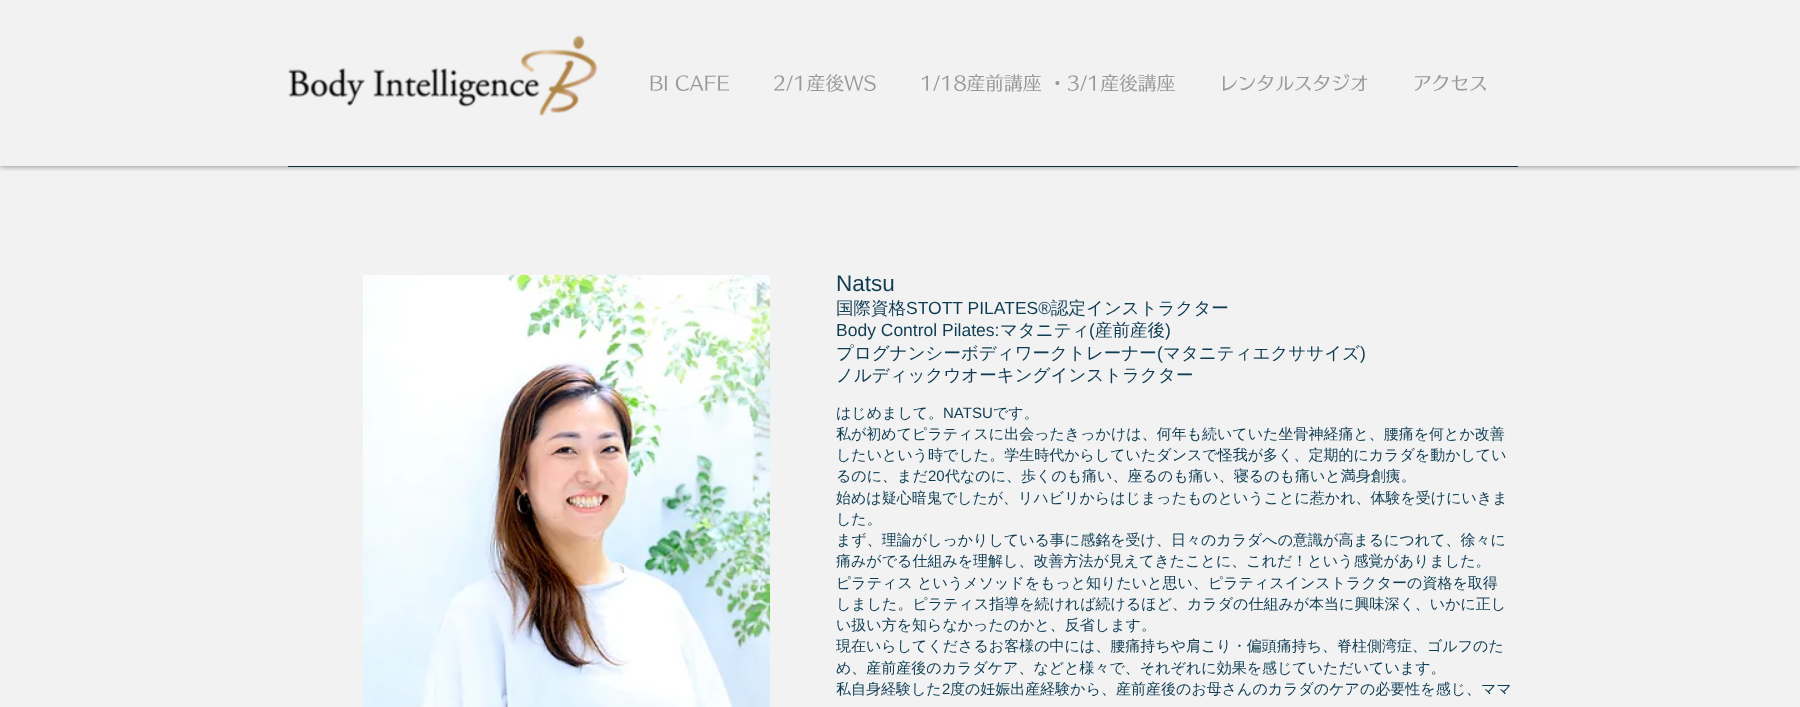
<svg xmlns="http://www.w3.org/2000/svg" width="1800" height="707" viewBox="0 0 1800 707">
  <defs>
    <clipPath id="clip1"><path d="M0 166h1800v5H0z"/></clipPath>
  </defs>
  <rect width="100%" height="100%" fill="#f2f2f2"/>
  <path d="M288 166h1230v1H288z" fill="#0e3c53"/>
  <g clip-path="url(#clip1)">
    <path d="M0 0h1800v166H0z" fill="#00000080" filter="blur(3px)"/>
  </g>
  <image x="288" y="35" width="310" height="81" href="img/1.png"/>
  <image x="363" y="275" width="407" height="432" href="img/2.png"/>
  <g font-family="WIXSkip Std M" font-size="18.75" font-weight="500" fill="#999">
    <text x="649" y="90">BI CAFE</text>
    <text x="773" y="90">2/1産後WS</text>
    <text x="920" y="90">1/18産前講座 ・3/1産後講座</text>
    <text x="1219" y="90">レンタルスタジオ</text>
    <text x="1413" y="90">アクセス</text>
  </g>
  <text x="836" y="291" font-family="Liberation Sans" font-size="22.5" fill="#0e3c53">Natsu</text>
  <text x="836" y="314" font-family="WenQuanYi Zen Hei" font-size="17.5" font-weight="500" fill="#0e3c53">国際資格</text>
  <text x="906" y="314" font-family="Liberation Sans" font-size="17.5" fill="#0e3c53">STOTT PILATES®</text>
  <text x="1051" y="314" font-family="WenQuanYi Zen Hei" font-size="17.5" font-weight="500" fill="#0e3c53">認定インストラクター</text>
  <text x="836" y="336" font-family="Liberation Sans" font-size="17.5" fill="#0e3c53">Body Control Pilates:</text>
  <text x="1000" y="336" font-family="WenQuanYi Zen Hei" font-size="17.5" font-weight="500" fill="#0e3c53">マタニティ</text>
  <text x="1089" y="336" font-family="Liberation Sans" font-size="17.5" fill="#0e3c53">(</text>
  <text x="1095" y="336" font-family="WenQuanYi Zen Hei" font-size="17.5" font-weight="500" fill="#0e3c53">産前産後</text>
  <text x="1165" y="336" font-family="Liberation Sans" font-size="17.5" fill="#0e3c53">)</text>
  <text x="836" y="359" font-family="WenQuanYi Zen Hei" font-size="17.5" font-weight="500" fill="#0e3c53">プログナンシーボディワークトレーナー</text>
  <text x="1157" y="359" font-family="Liberation Sans" font-size="17.5" fill="#0e3c53">(</text>
  <text x="1163" y="359" font-family="WenQuanYi Zen Hei" font-size="17.5" font-weight="500" fill="#0e3c53">マタニティエクササイズ</text>
  <text x="1360" y="359" font-family="Liberation Sans" font-size="17.5" fill="#0e3c53">)</text>
  <text x="836" y="381" font-family="WenQuanYi Zen Hei" font-size="17.5" font-weight="500" fill="#0e3c53">ノルディックウオーキングインストラクター</text>
  <text x="836" y="418" font-family="WenQuanYi Zen Hei" font-size="15" font-weight="500" fill="#0e3c53">はじめまして。</text>
  <text x="943" y="418" font-family="Liberation Sans" font-size="15" fill="#0e3c53">NATSU</text>
  <g font-family="WenQuanYi Zen Hei" font-size="15" font-weight="500" fill="#0e3c53">
    <text x="993" y="418">です。</text>
    <text x="836" y="439">私が初めてピラティスに出会ったきっかけは、何年も続いていた坐骨神経痛と、腰痛を何とか改善</text>
    <text x="836" y="460">したいという時でした。学生時代からしていたダンスで怪我が多く、定期的にカラダを動かしてい</text>
    <text x="836" y="481">るのに、まだ</text>
  </g>
  <text x="928" y="481" font-family="Liberation Sans" font-size="15" fill="#0e3c53">20</text>
  <g font-family="WenQuanYi Zen Hei" font-size="15" font-weight="500" fill="#0e3c53">
    <text x="945" y="481">代なのに、歩くのも痛い、座るのも痛い、寝るのも痛いと満身創痍。</text>
    <text x="836" y="503">始めは疑心暗鬼でしたが、リハビリからはじまったものということに惹かれ、体験を受けにいきま</text>
    <text x="836" y="524">した。</text>
    <text x="836" y="545">まず、理論がしっかりしている事に感銘を受け、日々のカラダへの意識が高まるにつれて、徐々に</text>
    <text x="836" y="566">痛みがでる仕組みを理解し、改善方法が見えてきたことに、これだ！という感覚がありました。</text>
    <text x="836" y="588">ピラティス というメソッドをもっと知りたいと思い、ピラティスインストラクターの資格を取得</text>
    <text x="836" y="609">しました。ピラティス指導を続ければ続けるほど、カラダの仕組みが本当に興味深く、いかに正し</text>
    <text x="836" y="630">い扱い方を知らなかったのかと、反省します。</text>
    <text x="836" y="651">現在いらしてくださるお客様の中には、腰痛持ちや肩こり・偏頭痛持ち、脊柱側湾症、ゴルフのた</text>
    <text x="836" y="673">め、産前産後のカラダケア、などと様々で、それぞれに効果を感じていただいています。</text>
    <text x="836" y="694">私自身経験した</text>
  </g>
  <text x="942" y="694" font-family="Liberation Sans" font-size="15" fill="#0e3c53">2</text>
  <text x="950" y="694" font-family="WenQuanYi Zen Hei" font-size="15" font-weight="500" fill="#0e3c53">度の妊娠出産経験から、産前産後のお母さんのカラダのケアの必要性を感じ、ママ</text>
</svg>
